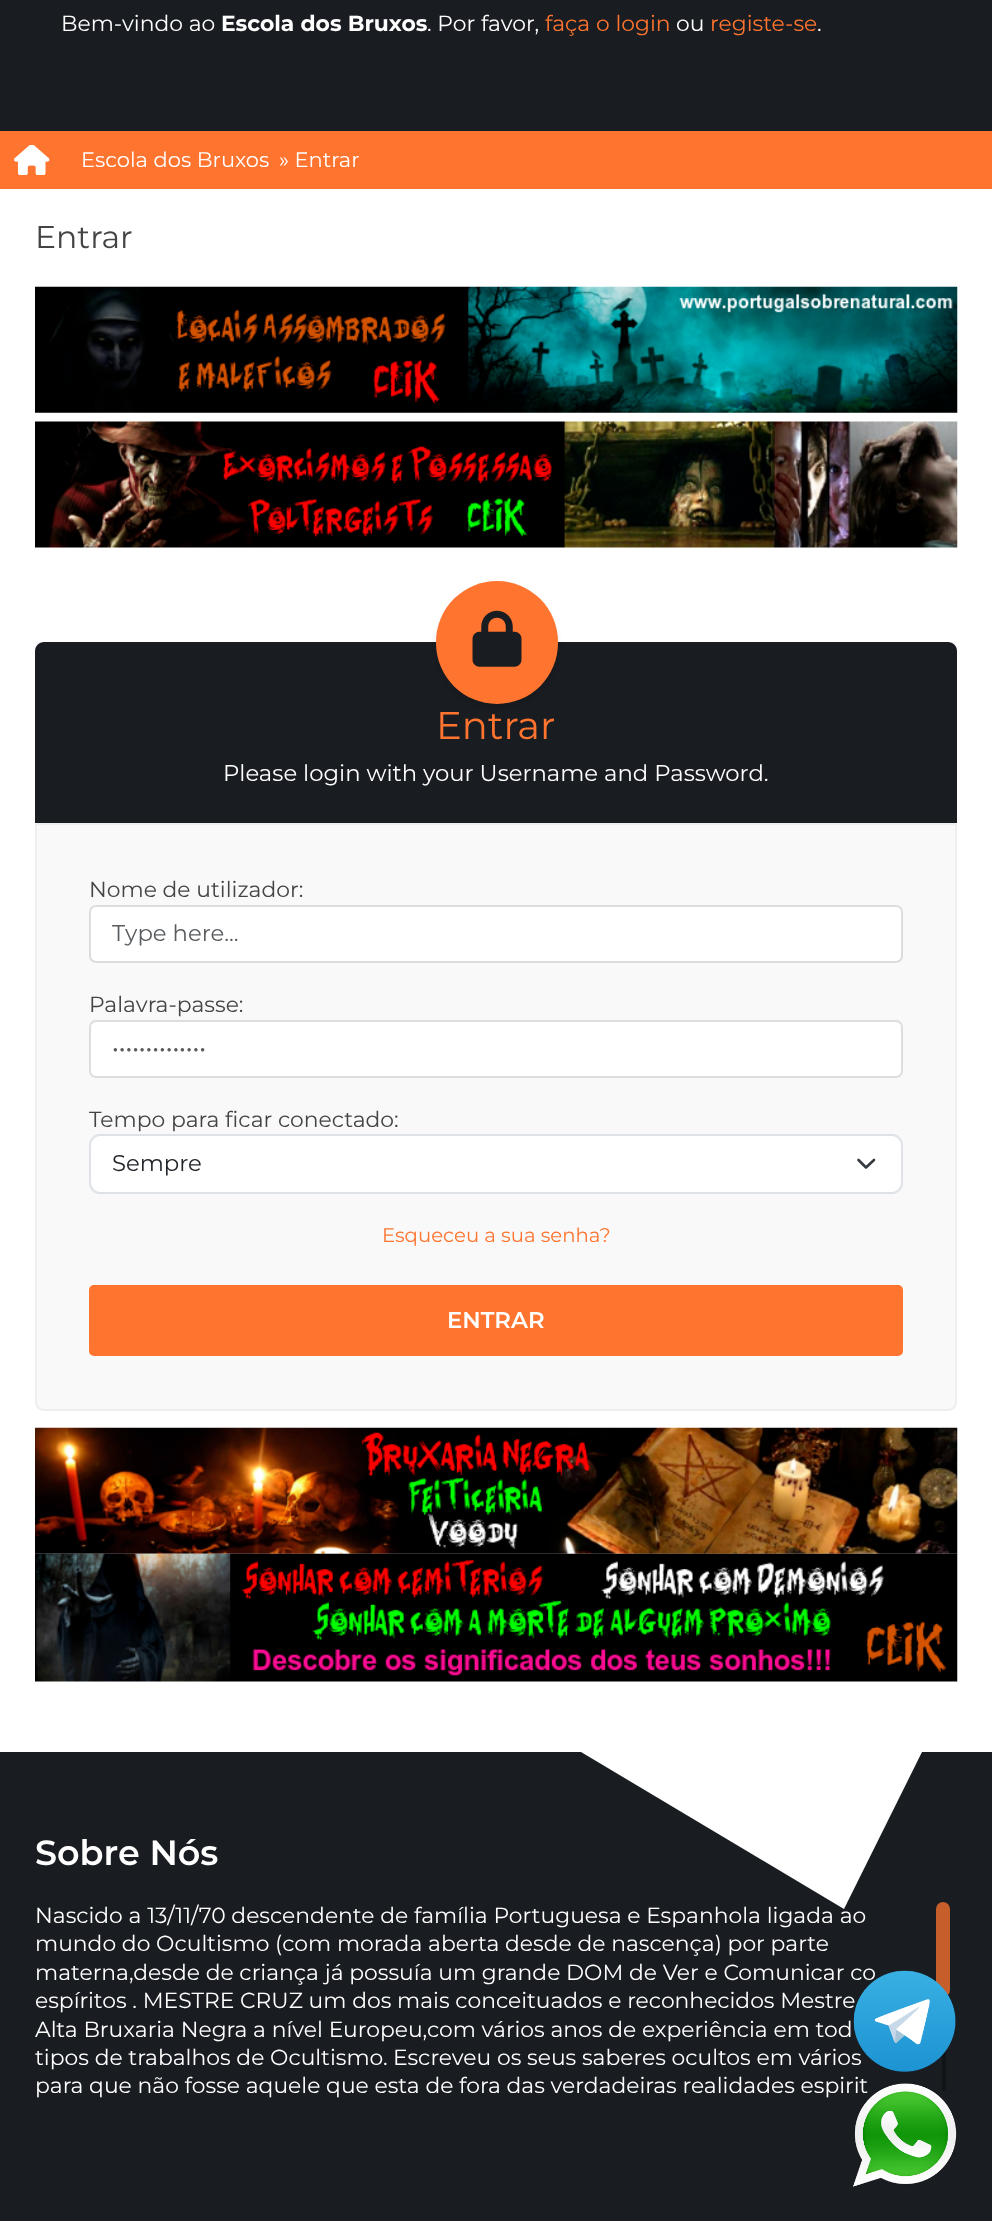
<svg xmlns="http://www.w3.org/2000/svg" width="992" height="2221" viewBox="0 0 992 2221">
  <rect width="100%" height="100%" fill="#fff"/>
  <path d="M0 0h992v131H0z" fill="#191c21"/>
  <path d="M0 131h992v58H0z" fill="#ff742f"/>
  <image x="14" y="145" width="36" height="30" href="img/1.png"/>
  <image x="35" y="286" width="923" height="127" href="img/2.png"/>
  <image x="35" y="421" width="923" height="127" href="img/3.png"/>
  <path d="M44 642H948C953 642 957 646 957 651V823H35V651C35 646 39 642 44 642Z" fill="#191c21"/>
  <rect x="436" y="585" width="122" height="122" rx="61" fill="#0000001f" filter="blur(2px)"/>
  <rect x="436" y="581" width="122" height="123" rx="61" fill="#ff742f"/>
  <image x="472" y="610" width="50" height="57" href="img/4.png"/>
  <path d="M36 824H956V1402C956 1406.5 952.5 1410 948 1410H44C39.5 1410 36 1406.5 36 1402Z" fill="#f9f9f9" stroke="#eee" stroke-width="2"/>
  <rect x="90" y="906" width="812" height="56" rx="6" fill="#fff" stroke="#ddd" stroke-width="2"/>
  <rect x="90" y="1021" width="812" height="56" rx="6" fill="#fff" stroke="#ddd" stroke-width="2"/>
  <rect x="89" y="1134" width="814" height="60" rx="11" fill="#fff"/>
  <path d="M858.5 1160L866 1167.5L874 1160" fill="none" stroke="#343a40" stroke-width="2.6" stroke-linecap="round" stroke-linejoin="round"/>
  <rect x="90" y="1135" width="812" height="58" rx="10" fill="none" stroke="#dee2e6" stroke-width="2"/>
  <rect x="89" y="1285" width="814" height="71" rx="5" fill="#ff742f"/>
  <image x="35" y="1427" width="923" height="127" href="img/5.png"/>
  <image x="35" y="1553" width="923" height="129" href="img/6.png"/>
  <path d="M0 1752h992v469H0z" fill="#191c21"/>
  <path d="M581 1752H922L844 1909Z" fill="#fff"/>
  <rect x="936" y="1902" width="14" height="95" rx="7" fill="#c65e2c"/>
  <rect x="942" y="1997" width="4" height="94" rx="2" fill="#111417"/>
  <text x="61" y="31" font-family="Montserrat" font-size="21.85" fill="#fff">Bem-vindo ao</text>
  <text x="221" y="31" font-family="Montserrat" font-size="21.85" font-weight="bold" fill="#fff">Escola dos Bruxos</text>
  <text x="427" y="31" font-family="Montserrat" font-size="21.85" fill="#fff">. Por favor,</text>
  <text x="545" y="31" font-family="Montserrat" font-size="21.85" fill="#ff742f">faça o login</text>
  <text x="676" y="31" font-family="Montserrat" font-size="21.85" fill="#fff">ou</text>
  <text x="710" y="31" font-family="Montserrat" font-size="21.85" fill="#ff742f">registe-se</text>
  <text x="817" y="31" font-family="Montserrat" font-size="21.85" fill="#fff">.</text>
  <g font-family="Montserrat" font-size="21" fill="#fff">
    <text x="81" y="167">Escola dos Bruxos</text>
    <text x="279" y="167">» Entrar</text>
  </g>
  <text x="35" y="248" font-family="Montserrat" font-size="31.5" fill="#444">Entrar</text>
  <text x="436" y="739" font-family="Montserrat" font-size="38.5" fill="#ff742f">Entrar</text>
  <text x="223" y="781" font-family="Montserrat" font-size="22.75" fill="#fff">Please login with your Username and Password.</text>
  <text x="89" y="897" font-family="Montserrat" font-size="21.85" fill="#444">Nome de utilizador:</text>
  <text x="112" y="941" font-family="Montserrat" font-size="22.75" fill="#595c5f">Type here...</text>
  <text x="89" y="1012" font-family="Montserrat" font-size="21.85" fill="#444">Palavra-passe:</text>
  <text x="112" y="1056" font-family="Montserrat" font-size="22.75" fill="#595c5f">••••••••••••••</text>
  <text x="89" y="1127" font-family="Montserrat" font-size="21.85" fill="#444">Tempo para ficar conectado:</text>
  <text x="112" y="1171" font-family="Montserrat" font-size="22.75" fill="#212529">Sempre</text>
  <text x="382" y="1242" font-family="Montserrat" font-size="19.7" fill="#ff742f">Esqueceu a sua senha?</text>
  <text x="447" y="1328" font-family="Montserrat" font-size="22.75" font-weight="600" fill="#fff">ENTRAR</text>
  <text x="35" y="1865" font-family="Montserrat" font-size="35" font-weight="600" fill="#fff">Sobre Nós</text>
  <g font-family="Montserrat" font-size="21.85" fill="#fff">
    <text x="35" y="1923">Nascido a 13/11/70 descendente de família Portuguesa e Espanhola ligada ao</text>
    <text x="35" y="1951">mundo do Ocultismo (com morada aberta desde de nascença) por parte</text>
    <text x="35" y="1980">materna,desde de criança já possuía um grande DOM de Ver e Comunicar co</text>
    <text x="35" y="2008">espíritos . MESTRE CRUZ um dos mais conceituados e reconhecidos Mestre</text>
    <text x="35" y="2037">Alta Bruxaria Negra a nível Europeu,com vários anos de experiência em tod</text>
    <text x="35" y="2065">tipos de trabalhos de Ocultismo.</text>
    <text x="393" y="2065">Escreveu os seus saberes ocultos em vários</text>
    <text x="35" y="2093">para que não fosse aquele que esta de fora das verdadeiras realidades espirit</text>
  </g>
  <image x="853" y="1970" width="103" height="102" href="img/7.png"/>
  <image x="853" y="2083" width="104" height="104" href="img/8.png"/>
</svg>
